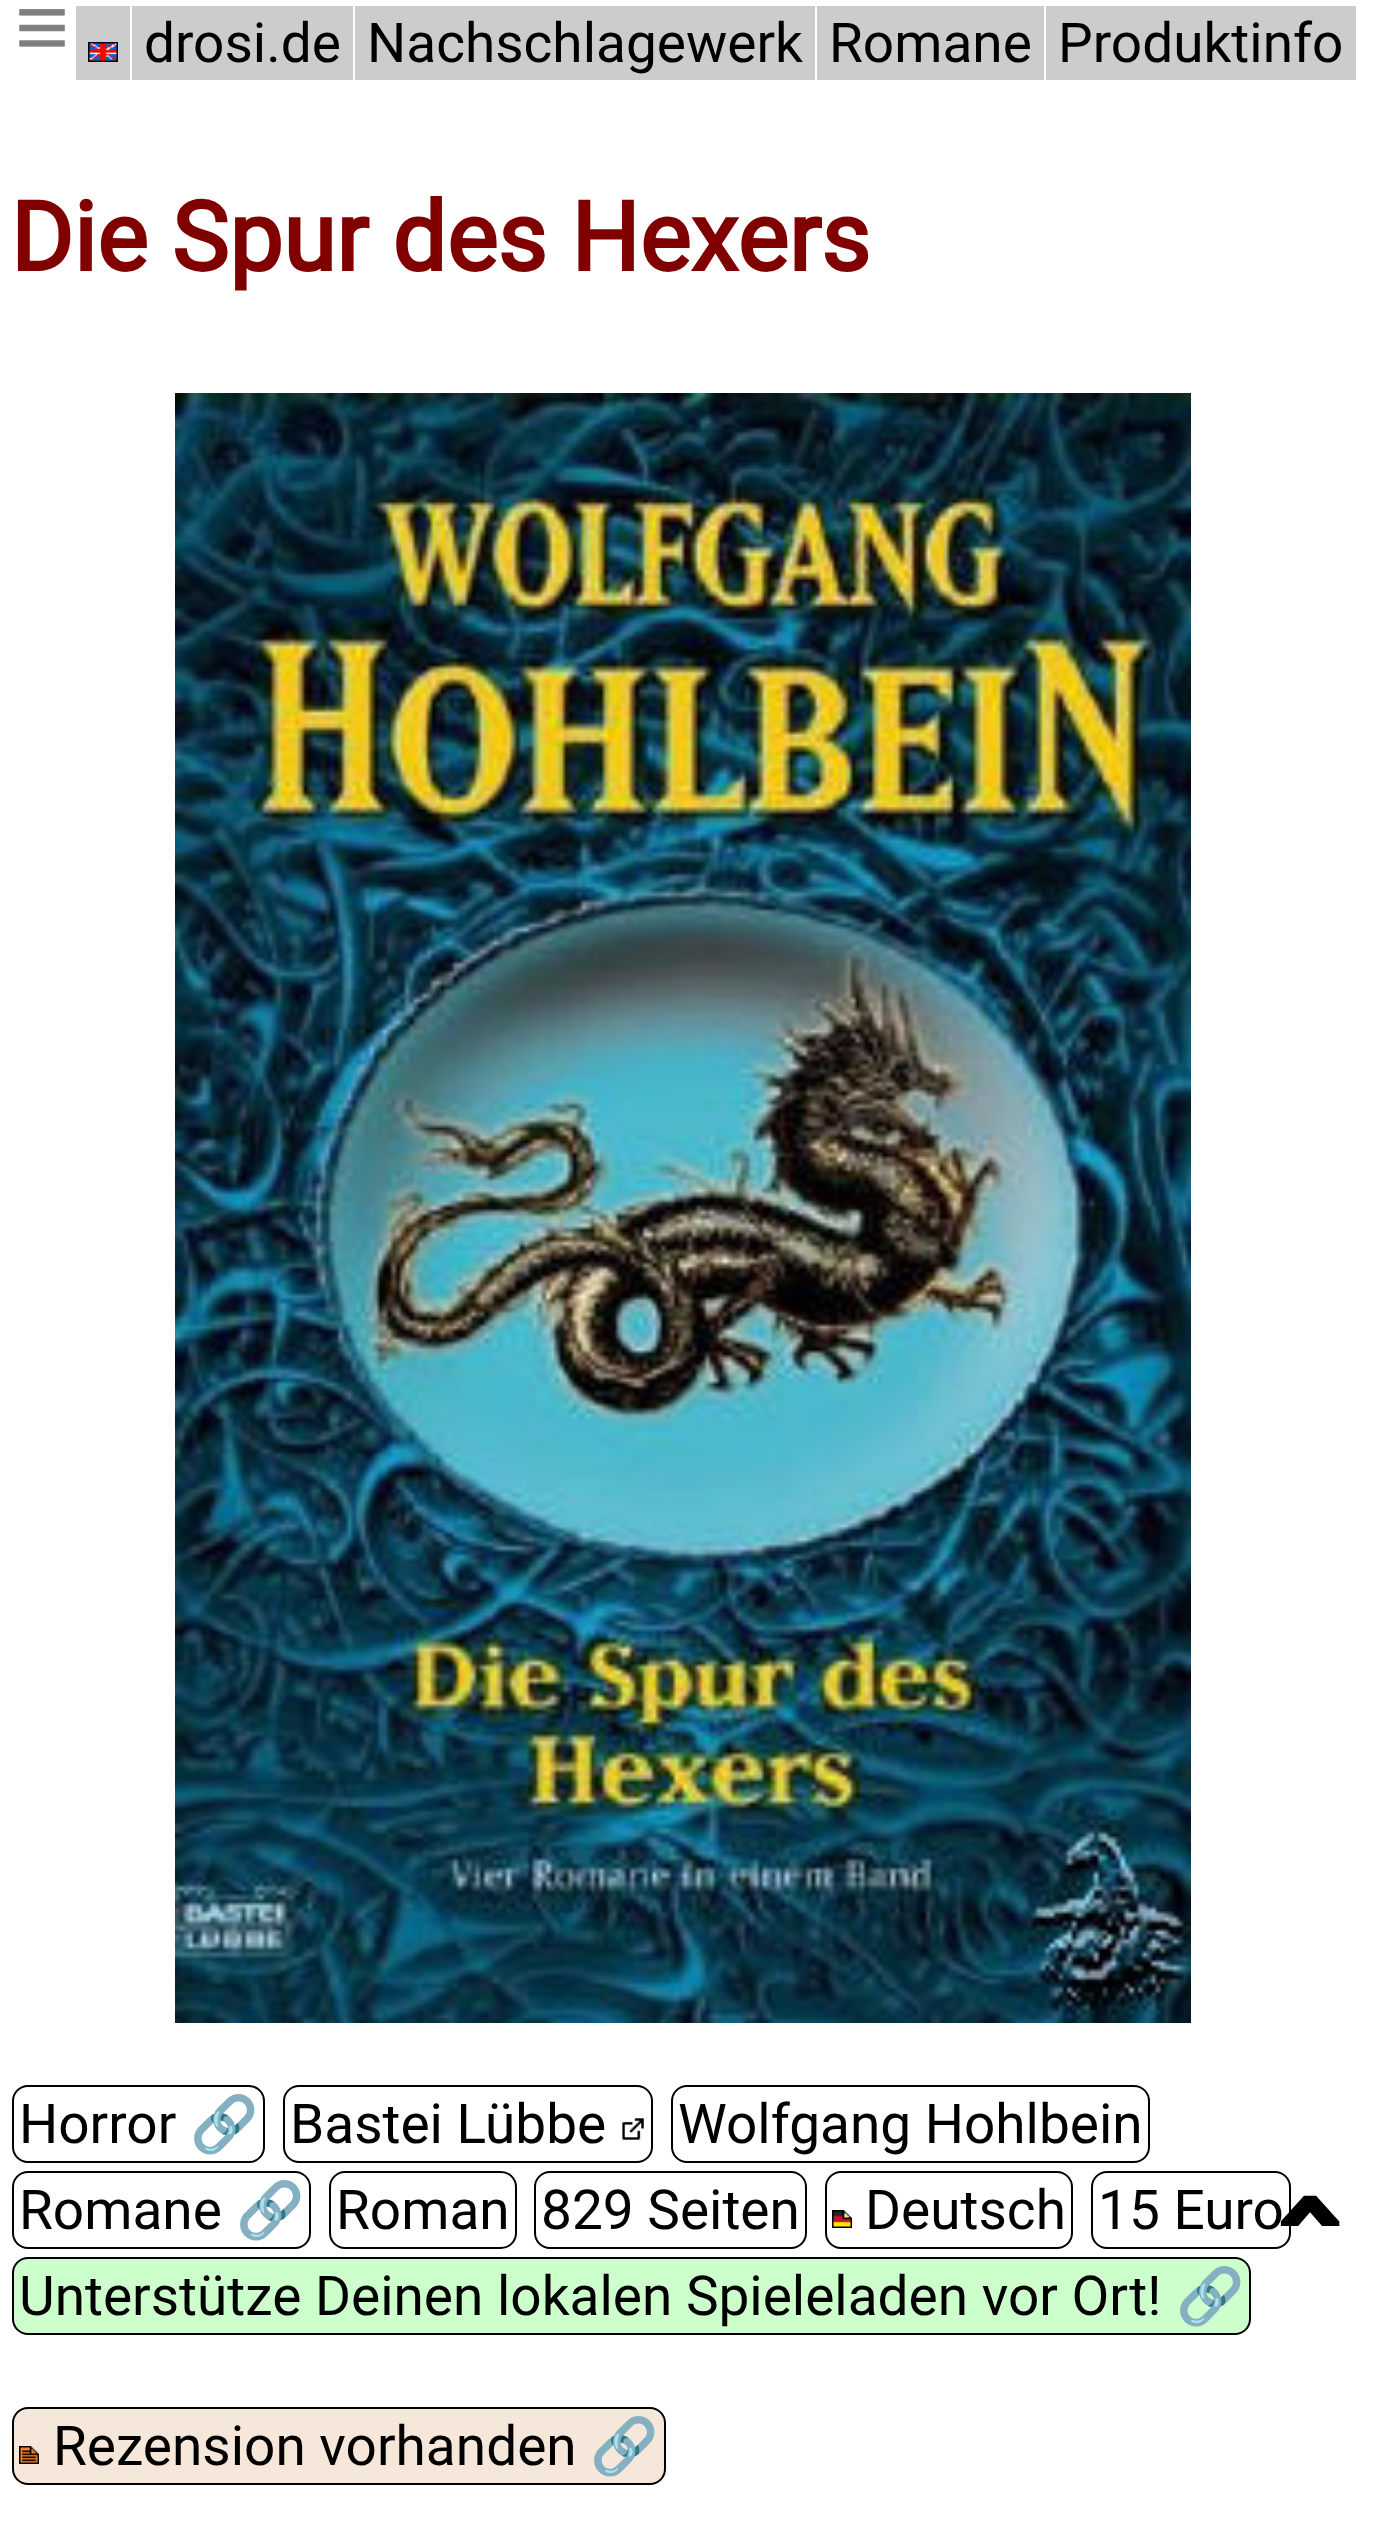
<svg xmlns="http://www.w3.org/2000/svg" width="1376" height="2540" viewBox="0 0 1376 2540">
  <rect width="100%" height="100%" fill="#fff"/>
  <image x="19" y="9" width="46" height="38" href="img/1.png"/>
  <path d="M76 6h54v74H76z" fill="#ccc"/>
  <image x="88" y="42" width="30" height="20" href="img/2.png"/>
  <path d="M132 6h221v74H132z" fill="#ccc"/>
  <path d="M355 6h460v74H355z" fill="#ccc"/>
  <path d="M817 6h227v74H817z" fill="#ccc"/>
  <path d="M1046 6h310v74H1046z" fill="#ccc"/>
  <image x="175" y="393" width="1016" height="1630" href="img/3.png"/>
  <rect x="13" y="2086" width="251" height="76" rx="15" fill="none" stroke="#000" stroke-width="2"/>
  <rect x="284" y="2086" width="368" height="76" rx="15" fill="none" stroke="#000" stroke-width="2"/>
  <image x="622" y="2118" width="22" height="22" href="img/4.png"/>
  <rect x="672" y="2086" width="477" height="76" rx="15" fill="none" stroke="#000" stroke-width="2"/>
  <rect x="13" y="2172" width="297" height="76" rx="15" fill="none" stroke="#000" stroke-width="2"/>
  <rect x="330" y="2172" width="186" height="76" rx="15" fill="none" stroke="#000" stroke-width="2"/>
  <rect x="535" y="2172" width="271" height="76" rx="15" fill="none" stroke="#000" stroke-width="2"/>
  <rect x="826" y="2172" width="246" height="76" rx="15" fill="none" stroke="#000" stroke-width="2"/>
  <image x="832" y="2210" width="20" height="18" href="img/5.png"/>
  <rect x="1092" y="2172" width="198" height="76" rx="15" fill="none" stroke="#000" stroke-width="2"/>
  <rect x="13" y="2258" width="1237" height="76" rx="15" fill="#cfc" stroke="#000" stroke-width="2"/>
  <rect x="13" y="2408" width="652" height="76" rx="15" fill="#f5e7d9" stroke="#000" stroke-width="2"/>
  <image x="19" y="2446" width="20" height="18" href="img/6.png"/>
  <g font-family="Roboto" font-size="55" fill="#000">
    <text x="144" y="62">drosi.de</text>
    <text x="367" y="62">Nachschlagewerk</text>
    <text x="829" y="62">Romane</text>
    <text x="1058" y="62">Produktinfo</text>
  </g>
  <text x="10" y="271" font-family="Roboto" font-size="96.25" font-weight="bold" fill="#800000">Die Spur des Hexers</text>
  <text x="19" y="2143" font-family="Roboto" font-size="55" fill="#000">Horror</text>
  <text x="190" y="2143" font-family="Noto Color Emoji" font-size="55" fill="#000">🔗</text>
  <g font-family="Roboto" font-size="55" fill="#000">
    <text x="290" y="2143">Bastei Lübbe</text>
    <text x="678" y="2143">Wolfgang Hohlbein</text>
    <text x="19" y="2229">Romane</text>
  </g>
  <text x="236" y="2229" font-family="Noto Color Emoji" font-size="55" fill="#000">🔗</text>
  <g font-family="Roboto" font-size="55" fill="#000">
    <text x="336" y="2229">Roman</text>
    <text x="541" y="2229">829 Seiten</text>
    <text x="865" y="2229">Deutsch</text>
    <text x="1098" y="2229">15 Euro</text>
    <text x="19" y="2315">Unterstütze Deinen lokalen Spieleladen vor Ort!</text>
  </g>
  <text x="1176" y="2315" font-family="Noto Color Emoji" font-size="55" fill="#000">🔗</text>
  <text x="53" y="2465" font-family="Roboto" font-size="55" fill="#000">Rezension vorhanden</text>
  <text x="590" y="2465" font-family="Noto Color Emoji" font-size="55" fill="#000">🔗</text>
  <text x="1266" y="2336" font-family="Roboto" font-size="180" font-weight="bold" fill="#000">ˆ</text>
</svg>
